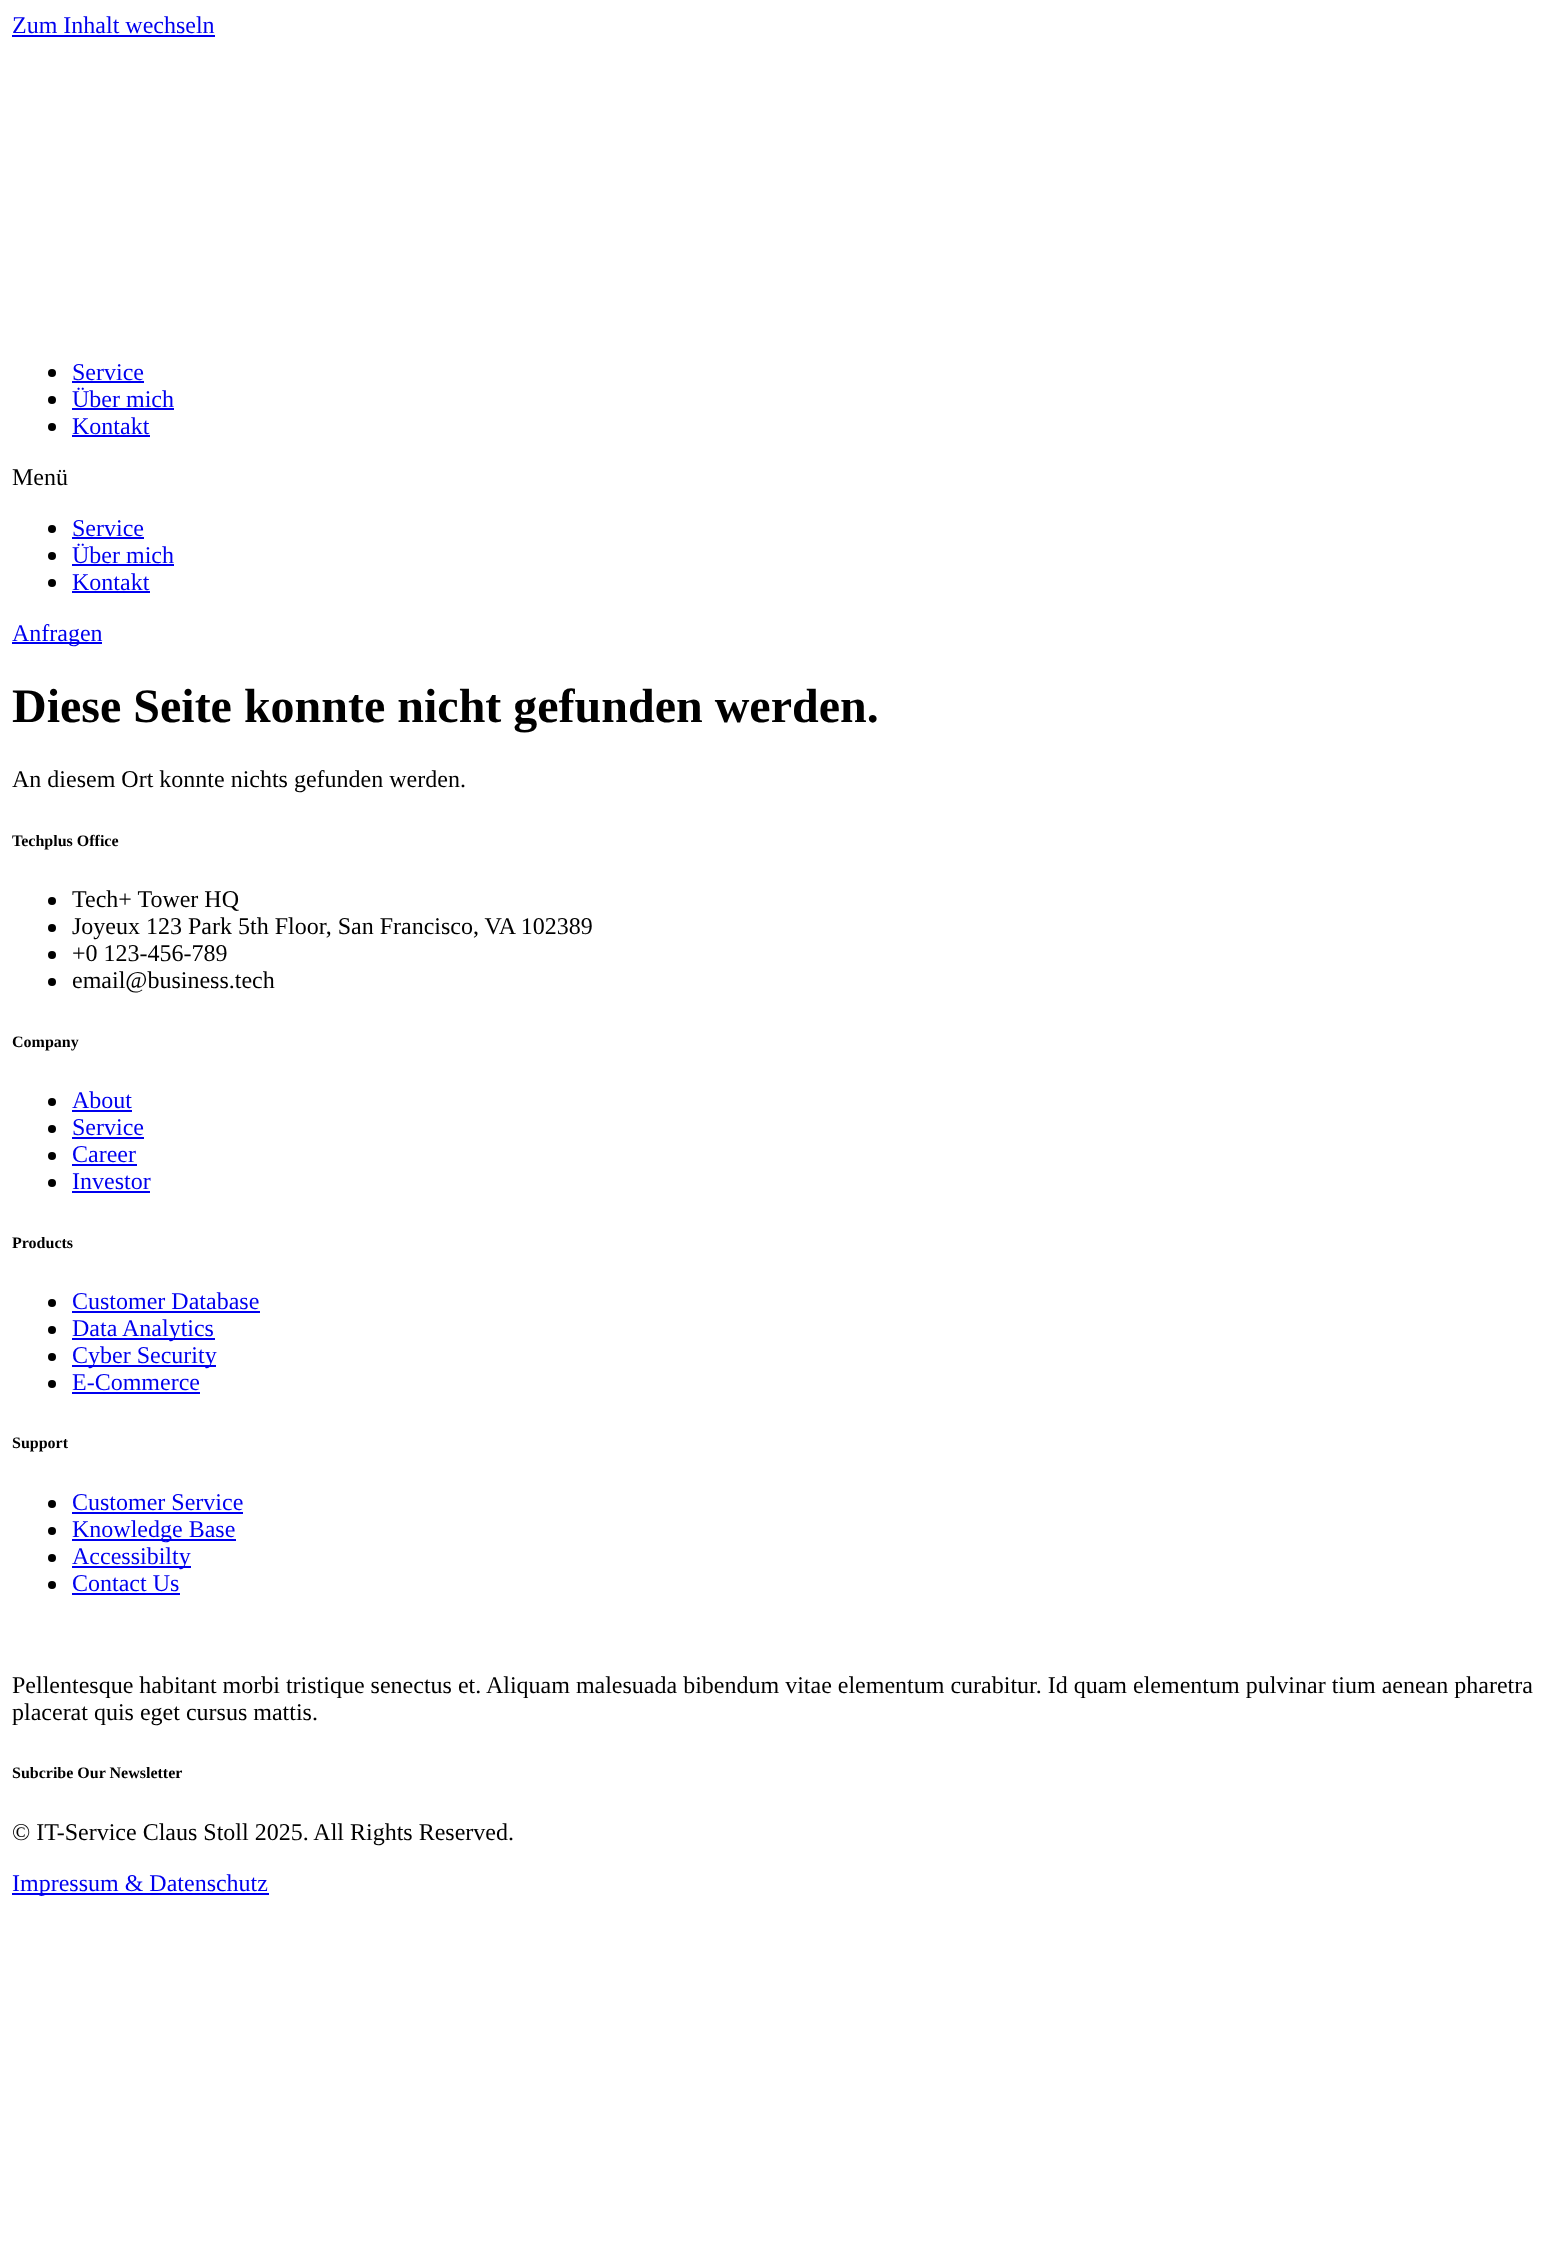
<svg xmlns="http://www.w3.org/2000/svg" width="1562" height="2254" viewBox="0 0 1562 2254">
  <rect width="100%" height="100%" fill="#fff"/>
  <path d="M12 35h203v2H12z" fill="#00e"/>
  <circle cx="52" cy="373" r="4" fill="#000"/>
  <path d="M72 381h72v2H72z" fill="#00e"/>
  <circle cx="52" cy="400" r="4" fill="#000"/>
  <path d="M72 408h102v2H72z" fill="#00e"/>
  <circle cx="52" cy="427" r="4" fill="#000"/>
  <path d="M72 435h78v2H72z" fill="#00e"/>
  <circle cx="52" cy="529" r="4" fill="#000"/>
  <path d="M72 537h72v2H72z" fill="#00e"/>
  <circle cx="52" cy="556" r="4" fill="#000"/>
  <path d="M72 564h102v2H72z" fill="#00e"/>
  <circle cx="52" cy="583" r="4" fill="#000"/>
  <path d="M72 591h78v2H72z" fill="#00e"/>
  <path d="M12 642h90v2H12z" fill="#00e"/>
  <circle cx="52" cy="901" r="4" fill="#000"/>
  <circle cx="52" cy="928" r="4" fill="#000"/>
  <circle cx="52" cy="955" r="4" fill="#000"/>
  <circle cx="52" cy="982" r="4" fill="#000"/>
  <circle cx="52" cy="1102" r="4" fill="#000"/>
  <path d="M72 1110h60v2H72z" fill="#00e"/>
  <circle cx="52" cy="1129" r="4" fill="#000"/>
  <path d="M72 1137h72v2H72z" fill="#00e"/>
  <circle cx="52" cy="1156" r="4" fill="#000"/>
  <path d="M72 1164h65v2H72z" fill="#00e"/>
  <circle cx="52" cy="1183" r="4" fill="#000"/>
  <path d="M72 1191h78v2H72z" fill="#00e"/>
  <circle cx="52" cy="1303" r="4" fill="#000"/>
  <path d="M72 1311h188v2H72z" fill="#00e"/>
  <circle cx="52" cy="1330" r="4" fill="#000"/>
  <path d="M72 1338h143v2H72z" fill="#00e"/>
  <circle cx="52" cy="1357" r="4" fill="#000"/>
  <path d="M72 1365h144v2H72z" fill="#00e"/>
  <circle cx="52" cy="1384" r="4" fill="#000"/>
  <path d="M72 1392h128v2H72z" fill="#00e"/>
  <circle cx="52" cy="1504" r="4" fill="#000"/>
  <path d="M72 1512h171v2H72z" fill="#00e"/>
  <circle cx="52" cy="1531" r="4" fill="#000"/>
  <path d="M72 1539h164v2H72z" fill="#00e"/>
  <circle cx="52" cy="1558" r="4" fill="#000"/>
  <path d="M72 1566h119v2H72z" fill="#00e"/>
  <circle cx="52" cy="1585" r="4" fill="#000"/>
  <path d="M72 1593h108v2H72z" fill="#00e"/>
  <path d="M12 1893h257v2H12z" fill="#00e"/>
  <g font-family="Liberation Serif" font-size="24" fill="#00e">
    <text x="12" y="33">Zum Inhalt wechseln</text>
    <text x="72" y="380">Service</text>
    <text x="72" y="407">Über mich</text>
    <text x="72" y="434">Kontakt</text>
  </g>
  <text x="12" y="485" font-family="Liberation Serif" font-size="24" fill="#000">Menü</text>
  <g font-family="Liberation Serif" font-size="24" fill="#00e">
    <text x="72" y="536">Service</text>
    <text x="72" y="563">Über mich</text>
    <text x="72" y="590">Kontakt</text>
    <text x="12" y="641">Anfragen</text>
  </g>
  <text x="12" y="722" font-family="Liberation Serif" font-size="48" font-weight="bold" fill="#000">Diese Seite konnte nicht gefunden werden.</text>
  <text x="12" y="787" font-family="Liberation Serif" font-size="24" fill="#000">An diesem Ort konnte nichts gefunden werden.</text>
  <text x="12" y="846" font-family="Liberation Serif" font-size="16" font-weight="bold" fill="#000">Techplus Office</text>
  <g font-family="Liberation Serif" font-size="24" fill="#000">
    <text x="72" y="907">Tech+ Tower HQ</text>
    <text x="72" y="934">Joyeux 123 Park 5th Floor, San Francisco, VA 102389</text>
    <text x="72" y="961">+0 123-456-789</text>
    <text x="72" y="988">email@business.tech</text>
  </g>
  <text x="12" y="1047" font-family="Liberation Serif" font-size="16" font-weight="bold" fill="#000">Company</text>
  <g font-family="Liberation Serif" font-size="24" fill="#00e">
    <text x="72" y="1108">About</text>
    <text x="72" y="1135">Service</text>
    <text x="72" y="1162">Career</text>
    <text x="72" y="1189">Investor</text>
  </g>
  <text x="12" y="1248" font-family="Liberation Serif" font-size="16" font-weight="bold" fill="#000">Products</text>
  <g font-family="Liberation Serif" font-size="24" fill="#00e">
    <text x="72" y="1309">Customer Database</text>
    <text x="72" y="1336">Data Analytics</text>
    <text x="72" y="1363">Cyber Security</text>
    <text x="72" y="1390">E-Commerce</text>
  </g>
  <text x="12" y="1448" font-family="Liberation Serif" font-size="16" font-weight="bold" fill="#000">Support</text>
  <g font-family="Liberation Serif" font-size="24" fill="#00e">
    <text x="72" y="1510">Customer Service</text>
    <text x="72" y="1537">Knowledge Base</text>
    <text x="72" y="1564">Accessibilty</text>
    <text x="72" y="1591">Contact Us</text>
  </g>
  <g font-family="Liberation Serif" font-size="24" fill="#000">
    <text x="12" y="1693">Pellentesque habitant morbi tristique senectus et. Aliquam malesuada bibendum vitae elementum curabitur. Id quam elementum pulvinar tium aenean pharetra</text>
    <text x="12" y="1720">placerat quis eget cursus mattis.</text>
  </g>
  <text x="12" y="1778" font-family="Liberation Serif" font-size="16" font-weight="bold" fill="#000">Subcribe Our Newsletter</text>
  <text x="12" y="1840" font-family="Liberation Serif" font-size="24" fill="#000">© IT-Service Claus Stoll 2025. All Rights Reserved.</text>
  <text x="12" y="1891" font-family="Liberation Serif" font-size="24" fill="#00e">Impressum &amp; Datenschutz</text>
</svg>
